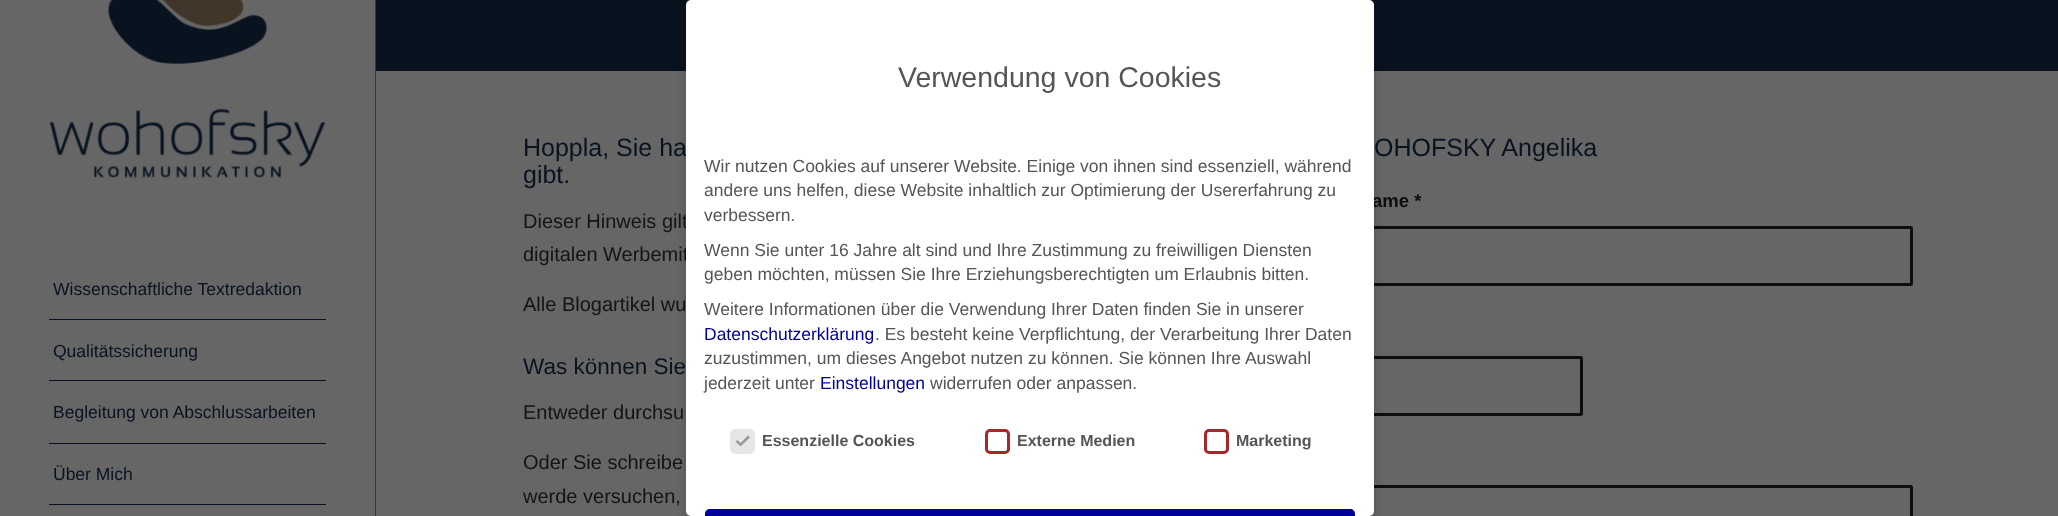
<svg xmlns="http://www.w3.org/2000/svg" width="2058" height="516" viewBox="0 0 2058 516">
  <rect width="100%" height="100%" fill="#666"/>
  <path d="M376 0h1682v71H376z" fill="#091320"/>
  <rect x="1260.5" y="227.5" width="651" height="57" rx="1" fill="none" stroke="#0e0e0e" stroke-width="3"/>
  <rect x="1260.5" y="357.5" width="321" height="57" rx="1" fill="none" stroke="#0e0e0e" stroke-width="3"/>
  <rect x="1260.5" y="486.5" width="651" height="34" rx="1" fill="none" stroke="#0e0e0e" stroke-width="3"/>
  <rect x="686" y="5" width="688" height="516" rx="5" fill="#00000033" filter="blur(5px)"/>
  <image x="50" y="0" width="275" height="178" href="img/1.png"/>
  <path d="M49 319h277v1H49z" fill="#091320"/>
  <path d="M49 380h277v1H49z" fill="#091320"/>
  <path d="M49 443h277v1H49z" fill="#091320"/>
  <path d="M49 504h277v1H49z" fill="#091320"/>
  <path d="M375 0h1v516H375z" fill="#413629"/>
  <g font-family="Liberation Sans" font-size="17.5" fill="#091320">
    <text x="53" y="295">Wissenschaftliche Textredaktion</text>
    <text x="53" y="357">Qualitätssicherung</text>
    <text x="53" y="418">Begleitung von Abschlussarbeiten</text>
    <text x="53" y="480">Über Mich</text>
  </g>
  <g font-family="Liberation Sans" font-size="25" fill="#091320">
    <text x="523" y="156">Hoppla, Sie ha</text>
    <text x="523" y="183">gibt.</text>
  </g>
  <g font-family="Liberation Sans" font-size="20" fill="#141414">
    <text x="523" y="228">Dieser Hinweis gilt</text>
    <text x="523" y="261">digitalen Werbemit</text>
    <text x="523" y="311">Alle Blogartikel wu</text>
  </g>
  <text x="523" y="374" font-family="Liberation Sans" font-size="22.5" fill="#091320">Was können Sie</text>
  <g font-family="Liberation Sans" font-size="20" fill="#141414">
    <text x="523" y="419">Entweder durchsu</text>
    <text x="523" y="469">Oder Sie schreibe</text>
    <text x="523" y="503">werde versuchen,</text>
  </g>
  <text x="1374" y="156" font-family="Liberation Sans" font-size="25" fill="#091320">OHOFSKY Angelika</text>
  <text x="1372" y="207" font-family="Liberation Sans" font-size="18.5" font-weight="bold" fill="#0e0e0e">ame *</text>
  <rect x="686" width="688" height="516" rx="5" fill="#fff"/>
  <rect x="1205.5" y="430.5" width="22" height="22" rx="3.5" fill="none" stroke="#a72828" stroke-width="3"/>
  <text x="1236" y="446" font-family="Liberation Sans" font-size="16" font-weight="bold" fill="#555">Marketing</text>
  <rect x="986.5" y="430.5" width="22" height="22" rx="3.5" fill="none" stroke="#a72828" stroke-width="3"/>
  <text x="1017" y="446" font-family="Liberation Sans" font-size="16" font-weight="bold" fill="#555">Externe Medien</text>
  <rect x="731.5" y="430.5" width="22" height="22" rx="3.5" fill="#e6e6e6" stroke="#e6e6e6" stroke-width="3"/>
  <path d="M748 435.5L750 437.5L741 446L739 444.5Z" fill="#999"/>
  <path d="M737.5 440L742 444.5L740 446L735.5 441.5Z" fill="#999"/>
  <text x="762" y="446" font-family="Liberation Sans" font-size="16" font-weight="bold" fill="#555">Essenzielle Cookies</text>
  <text x="930" y="389" font-family="Liberation Sans" font-size="17.5" fill="#555">widerrufen oder anpassen.</text>
  <text x="820" y="389" font-family="Liberation Sans" font-size="17.5" fill="#009">Einstellungen</text>
  <g font-family="Liberation Sans" font-size="17.5" fill="#555">
    <text x="704" y="389">jederzeit unter</text>
    <text x="704" y="364">zuzustimmen, um dieses Angebot nutzen zu können. Sie können Ihre Auswahl</text>
    <text x="875" y="340">. Es besteht keine Verpflichtung, der Verarbeitung Ihrer Daten</text>
  </g>
  <text x="704" y="340" font-family="Liberation Sans" font-size="17.5" fill="#009">Datenschutzerklärung</text>
  <g font-family="Liberation Sans" font-size="17.5" fill="#555">
    <text x="704" y="315">Weitere Informationen über die Verwendung Ihrer Daten finden Sie in unserer</text>
    <text x="704" y="280">geben möchten, müssen Sie Ihre Erziehungsberechtigten um Erlaubnis bitten.</text>
    <text x="704" y="256">Wenn Sie unter 16 Jahre alt sind und Ihre Zustimmung zu freiwilligen Diensten</text>
    <text x="704" y="221">verbessern.</text>
    <text x="704" y="196">andere uns helfen, diese Website inhaltlich zur Optimierung der Usererfahrung zu</text>
    <text x="704" y="172">Wir nutzen Cookies auf unserer Website. Einige von ihnen sind essenziell, während</text>
  </g>
  <path d="M710 509H1350C1353 509 1355 511 1355 514V516H705V514C705 511 707 509 710 509Z" fill="#009"/>
  <text x="898" y="87" font-family="Liberation Sans" font-size="28.5" fill="#555">Verwendung von Cookies</text>
</svg>
